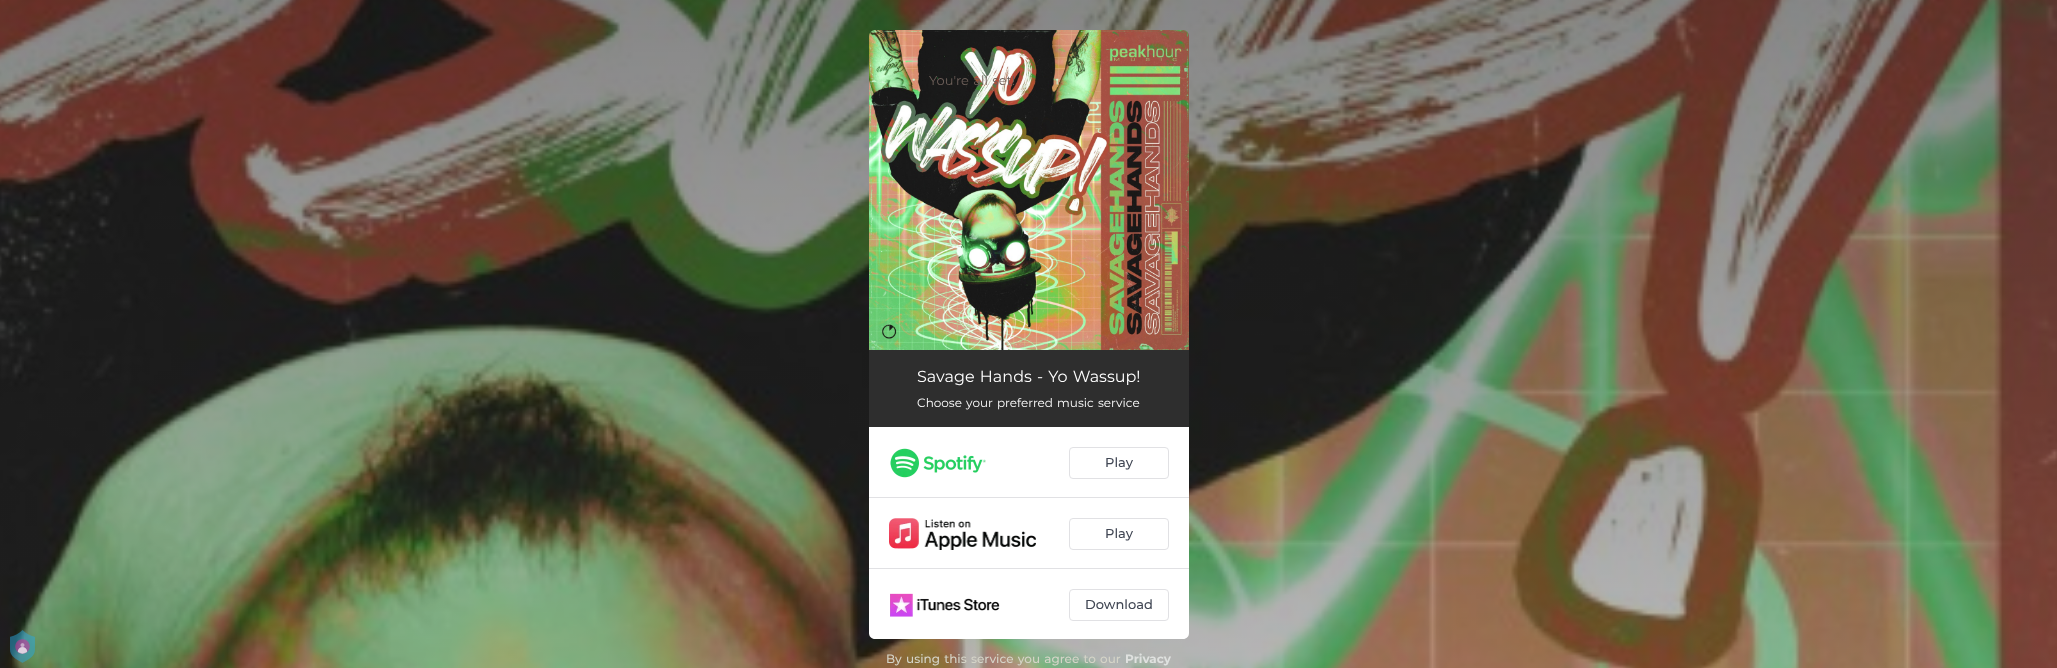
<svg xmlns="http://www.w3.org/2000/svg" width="2057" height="668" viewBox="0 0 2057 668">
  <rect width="100%" height="100%" fill="#fff"/>
  <image x="0" y="0" width="2057" height="668" href="img/2.png"/>
  <image x="10" y="630" width="25" height="33" href="img/1.png"/>
  <image x="869" y="30" width="320" height="320" href="img/3.png"/>
  <path d="M869 350h320v77H869z" fill="#2e2e2e"/>
  <path d="M869 427H1189V633C1189 636.5 1186.5 639 1183 639H875C871.5 639 869 636.5 869 633Z" fill="#fff"/>
  <path d="M869 497h320v1H869z" fill="#e1e1e4"/>
  <image x="890" y="448" width="96" height="30" href="img/4.png"/>
  <rect x="1069.5" y="447.5" width="99" height="31" rx="3.5" fill="none" stroke="#e1e1e4"/>
  <path d="M869 568h320v1H869z" fill="#e1e1e4"/>
  <image x="889" y="518" width="147" height="32" href="img/5.png"/>
  <rect x="1069.5" y="518.5" width="99" height="31" rx="3.5" fill="none" stroke="#e1e1e4"/>
  <image x="890" y="593" width="110" height="24" href="img/6.png"/>
  <rect x="1069.5" y="589.5" width="99" height="31" rx="3.5" fill="none" stroke="#e1e1e4"/>
  <text x="929" y="85" word-spacing="1" font-family="Montserrat" font-size="13" fill="#6d5f59">You're all set!</text>
  <text x="917" y="382" word-spacing="1" font-family="Montserrat" font-size="16" fill="#fff">Savage Hands - Yo Wassup!</text>
  <text x="917" y="407" word-spacing="1" font-family="Montserrat" font-size="12" fill="#fff">Choose your preferred music service</text>
  <g font-family="Montserrat" font-size="13" font-weight="500" fill="#414754">
    <text x="1105" y="467">Play</text>
    <text x="1105" y="538">Play</text>
    <text x="1085" y="609">Download</text>
  </g>
  <text x="886" y="663" word-spacing="1" font-family="Montserrat" font-size="12" font-weight="500" fill="#d5d4c8">By using this service you agree to our</text>
  <text x="1125" y="663" font-family="Montserrat" font-size="12" font-weight="bold" fill="#dfe1df">Privacy</text>
</svg>
